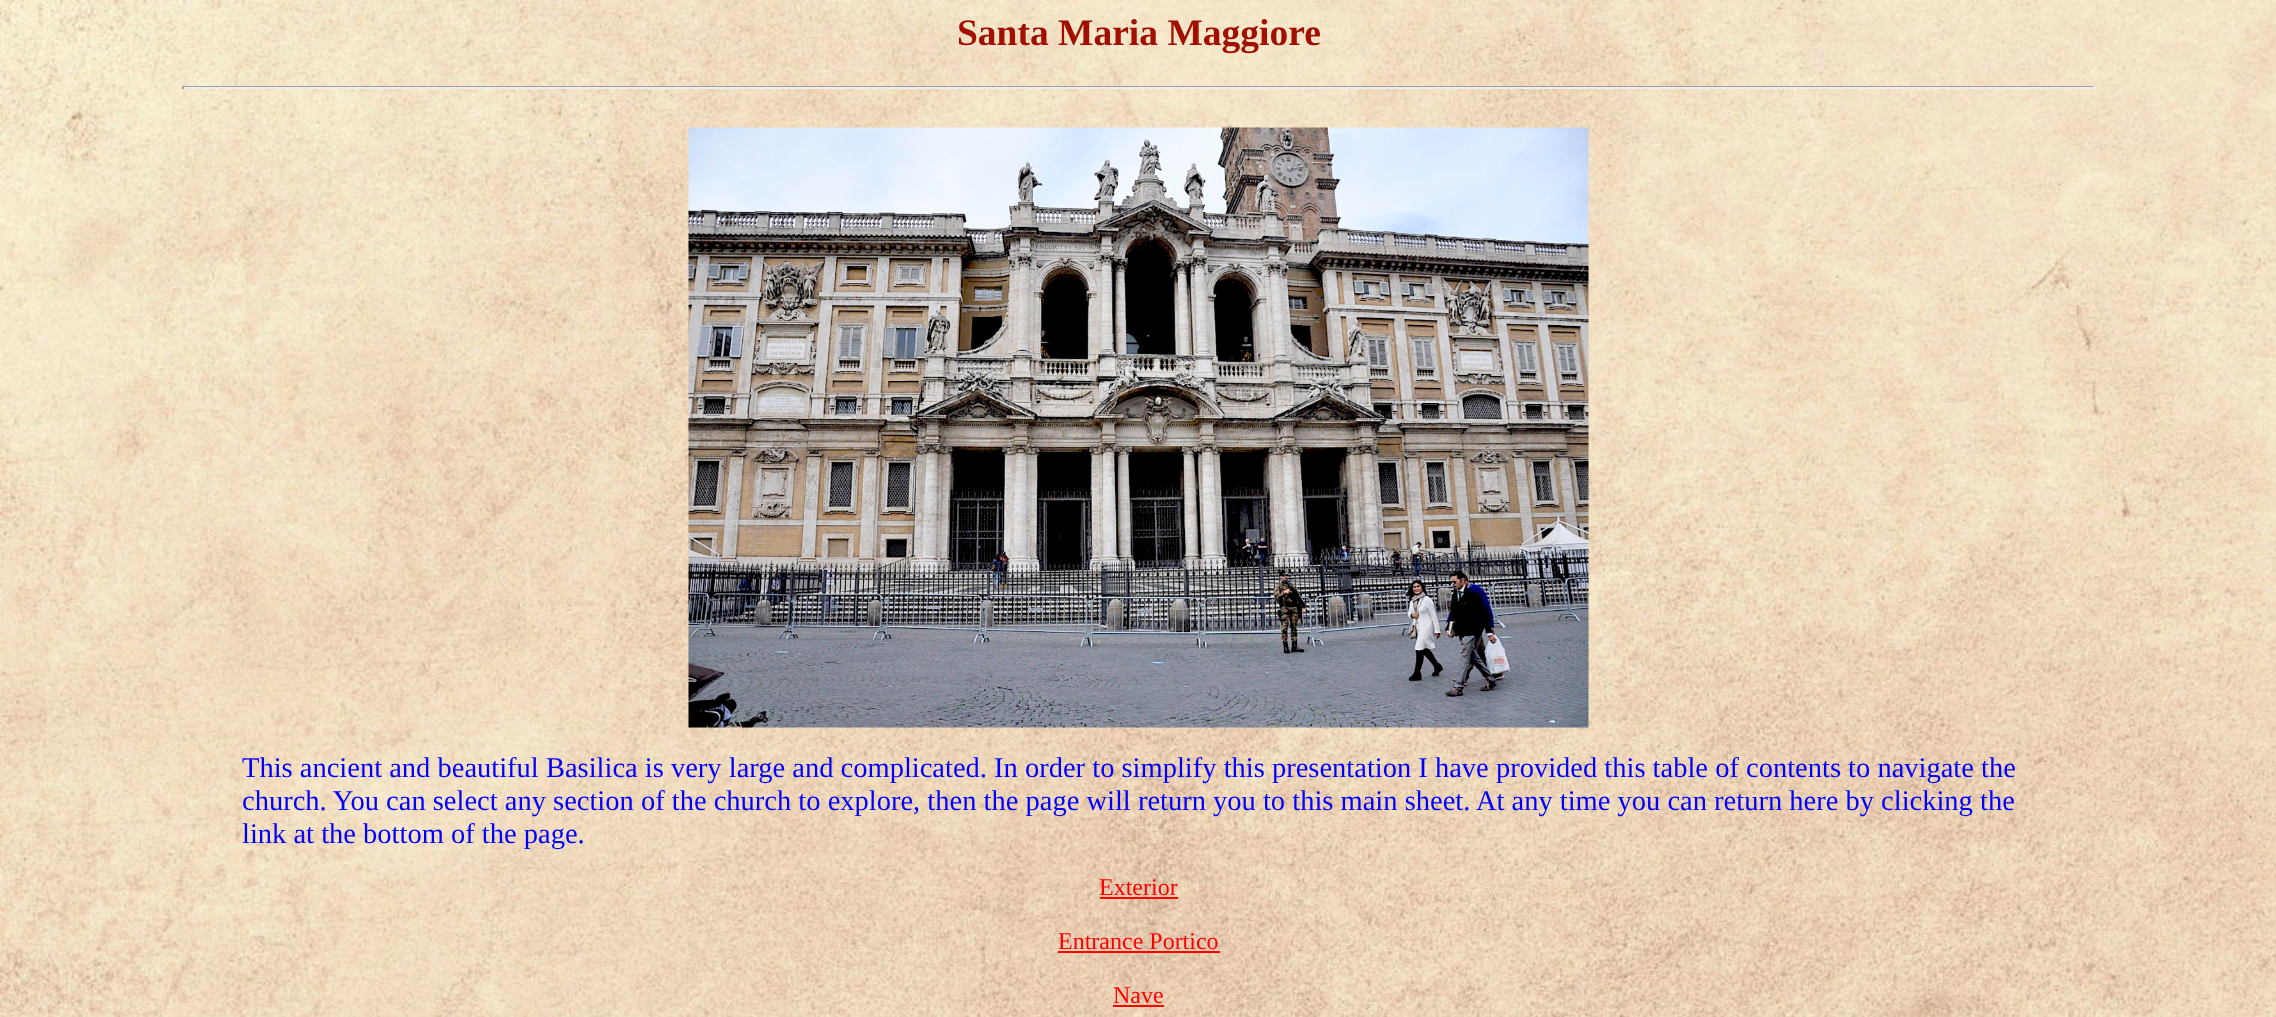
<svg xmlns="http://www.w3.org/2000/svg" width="2276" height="1017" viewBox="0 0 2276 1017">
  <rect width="100%" height="100%" fill="#fff"/>
  <image x="0" y="0" width="2276" height="1017" href="img/1.png"/>
  <path d="M182 86h1914v1H182z" fill="#9f9f9f"/>
  <path d="M2094 86h2v3H2094z" fill="#eee"/>
  <path d="M182 87h1914v2H182z" fill="#eee"/>
  <path d="M182 86h2v3H182z" fill="#9f9f9f"/>
  <image x="688" y="127" width="901" height="601" href="img/2.png"/>
  <path d="M1100 897h78v2H1100z" fill="#f00"/>
  <path d="M1058 951h162v2H1058z" fill="#f00"/>
  <path d="M1113 1005h51v2H1113z" fill="#f00"/>
  <text x="957" y="45" font-family="Liberation Serif" font-size="37.5" font-weight="bold" fill="#a00f00">Santa Maria Maggiore</text>
  <g font-family="Liberation Serif" font-size="28.5" fill="#00f">
    <text x="242" y="777">This ancient and beautiful Basilica is very large and complicated. In order to simplify this presentation I have provided this table of contents to navigate the</text>
    <text x="242" y="810">church. You can select any section of the church to explore, then the page will return you to this main sheet. At any time you can return here by clicking the</text>
    <text x="242" y="843">link at the bottom of the page.</text>
  </g>
  <g font-family="Liberation Serif" font-size="24" fill="#f00">
    <text x="1099" y="895">Exterior</text>
    <text x="1058" y="949">Entrance Portico</text>
    <text x="1113" y="1003">Nave</text>
  </g>
</svg>
